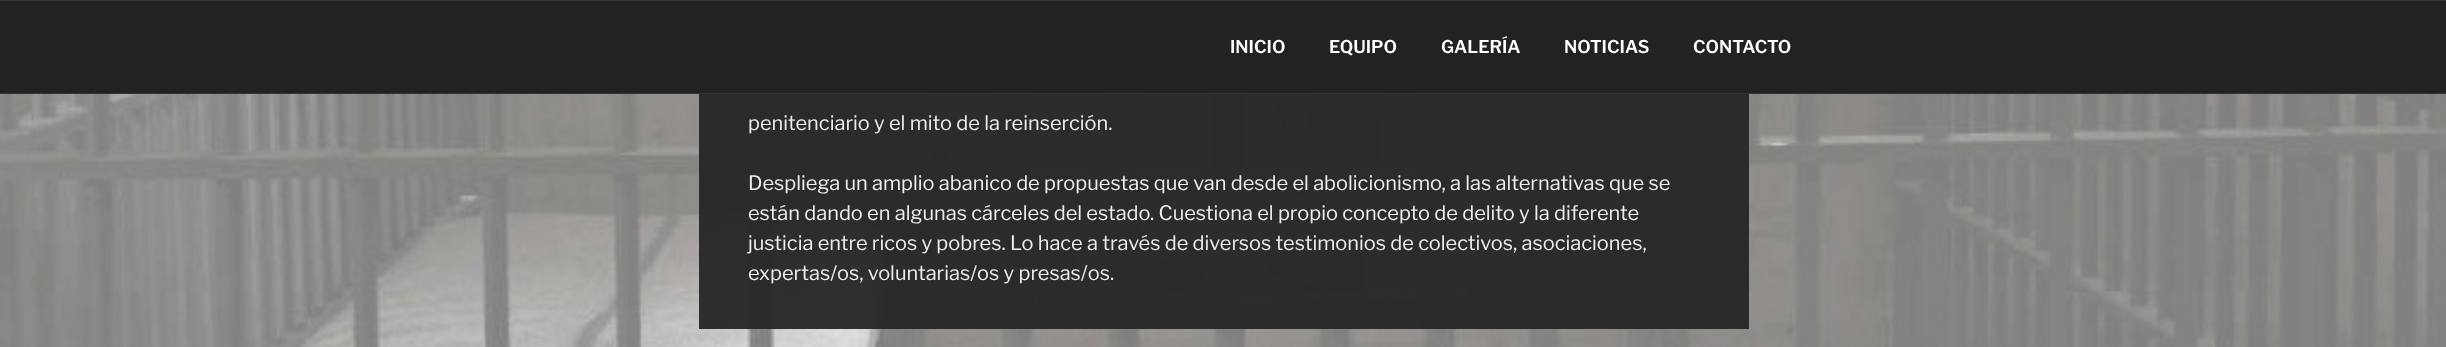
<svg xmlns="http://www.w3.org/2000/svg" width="2446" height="347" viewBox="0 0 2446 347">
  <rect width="100%" height="100%" fill="#fff"/>
  <path d="M0 1h2446v92H0z" fill="#222"/>
  <path d="M0 0h2446v1H0z" fill="#333"/>
  <path d="M0 93h2446v1H0z" fill="#333"/>
  <image x="0" y="94" width="2446" height="253" href="img/1.png"/>
  <path d="M699 94h1050v235H699z" fill="#262626f2"/>
  <g font-family="Libre Franklin" font-size="17.5" font-weight="600" fill="#fff">
    <text x="1230" y="53">INICIO</text>
    <text x="1329" y="53">EQUIPO</text>
    <text x="1441" y="53">GALERÍA</text>
    <text x="1564" y="53">NOTICIAS</text>
    <text x="1693" y="53">CONTACTO</text>
  </g>
  <g font-family="Libre Franklin" font-size="20" fill="#eee">
    <text x="748" y="130">penitenciario y el mito de la reinserción.</text>
    <text x="748" y="190">Despliega un amplio abanico de propuestas que van desde el abolicionismo, a las alternativas que se</text>
    <text x="748" y="220">están dando en algunas cárceles del estado. Cuestiona el propio concepto de delito y la diferente</text>
    <text x="748" y="250">justicia entre ricos y pobres. Lo hace a través de diversos testimonios de colectivos, asociaciones,</text>
    <text x="748" y="280">expertas/os, voluntarias/os y presas/os.</text>
  </g>
</svg>
